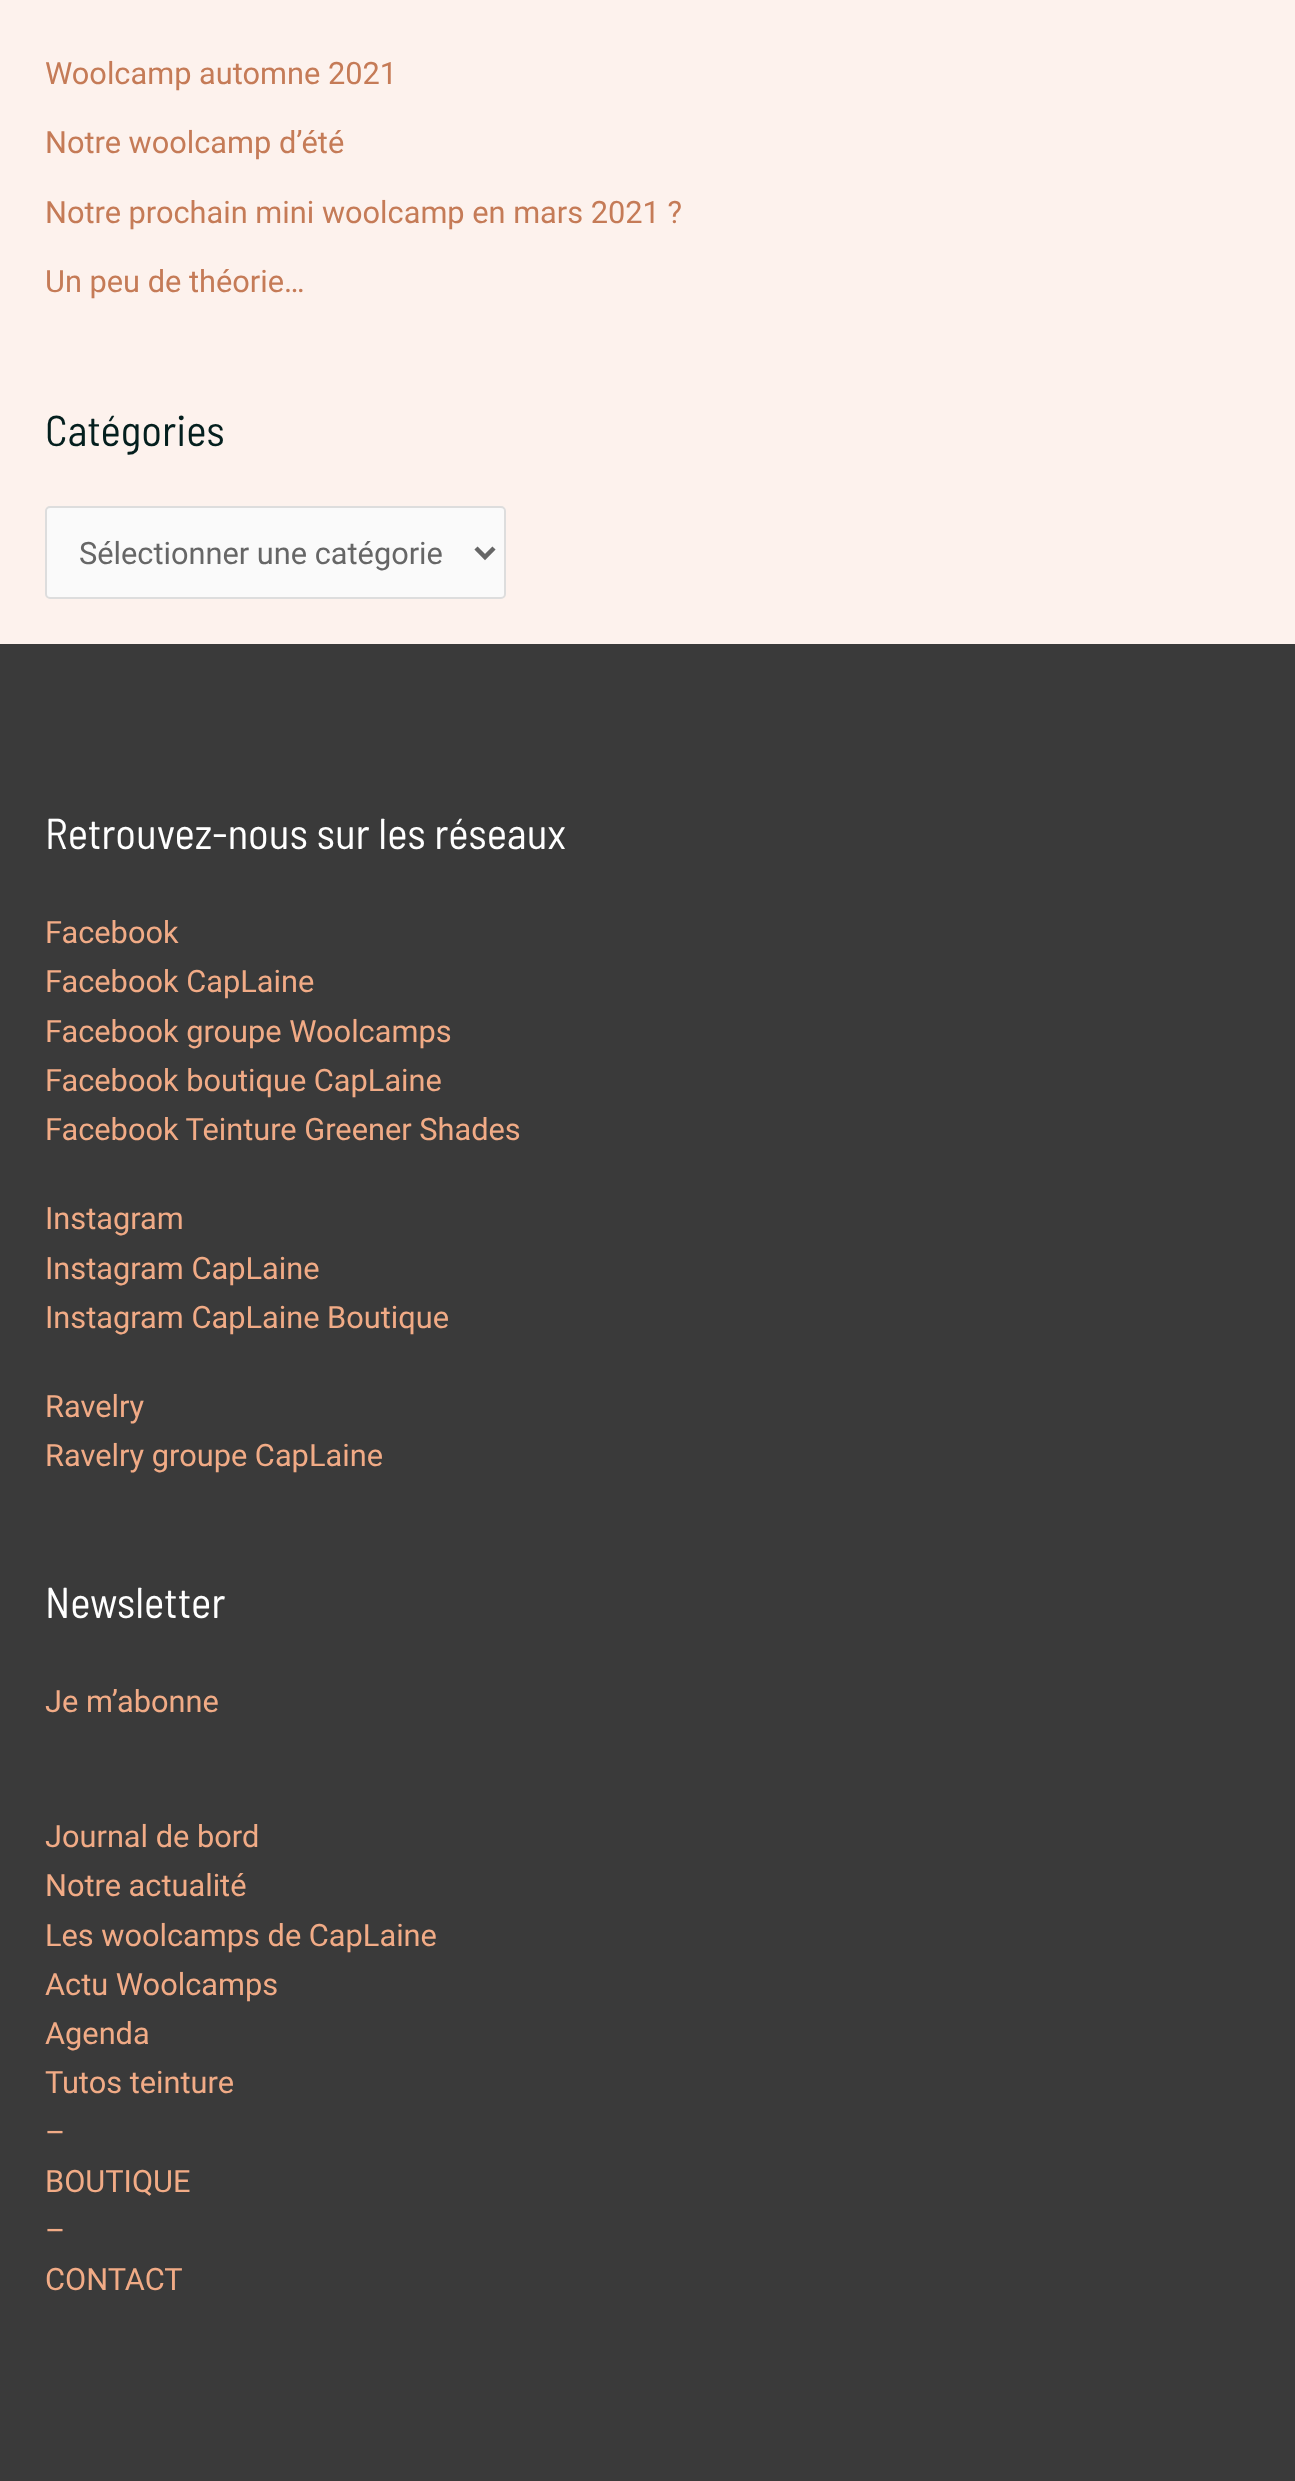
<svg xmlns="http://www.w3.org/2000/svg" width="1295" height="2481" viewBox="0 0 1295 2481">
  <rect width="100%" height="100%" fill="#fdf2ed"/>
  <rect x="46" y="507" width="459" height="91" rx="4" fill="#fafafa" stroke="#ddd" stroke-width="2"/>
  <path d="M476 548L485 557L494 548" fill="none" stroke="#666" stroke-width="4.5"/>
  <path d="M0 644h1295v1837H0z" fill="#3a3a3a"/>
  <g font-family="Roboto" font-size="30.75" fill="#c57b57">
    <text x="45" y="84">Woolcamp automne 2021</text>
    <text x="45" y="153">Notre woolcamp d’été</text>
    <text x="45" y="223">Notre prochain mini woolcamp en mars 2021 ?</text>
    <text x="45" y="292">Un peu de théorie…</text>
  </g>
  <text x="45" y="446" font-family="Barlow Semi Condensed" font-size="43.1" fill="#041f1e">Catégories</text>
  <text x="79" y="564" font-family="Roboto" font-size="30.75" fill="#666">Sélectionner une catégorie</text>
  <text x="45" y="849" font-family="Barlow Semi Condensed" font-size="43.1" fill="#fff">Retrouvez-nous sur les réseaux</text>
  <g font-family="Roboto" font-size="30.75" fill="#f1ab86">
    <text x="45" y="943">Facebook</text>
    <text x="45" y="992">Facebook CapLaine</text>
    <text x="45" y="1042">Facebook groupe Woolcamps</text>
    <text x="45" y="1091">Facebook boutique CapLaine</text>
    <text x="45" y="1140">Facebook Teinture Greener Shades</text>
    <text x="45" y="1229">Instagram</text>
    <text x="45" y="1279">Instagram CapLaine</text>
    <text x="45" y="1328">Instagram CapLaine Boutique</text>
    <text x="45" y="1417">Ravelry</text>
    <text x="45" y="1466">Ravelry groupe CapLaine</text>
  </g>
  <text x="45" y="1618" font-family="Barlow Semi Condensed" font-size="43.1" fill="#fff">Newsletter</text>
  <g font-family="Roboto" font-size="30.75" fill="#f1ab86">
    <text x="45" y="1712">Je m’abonne</text>
    <text x="45" y="1847">Journal de bord</text>
    <text x="45" y="1896">Notre actualité</text>
    <text x="45" y="1946">Les woolcamps de CapLaine</text>
    <text x="45" y="1995">Actu Woolcamps</text>
    <text x="45" y="2044">Agenda</text>
    <text x="45" y="2093">Tutos teinture</text>
    <text x="45" y="2143">–</text>
    <text x="45" y="2192">BOUTIQUE</text>
    <text x="45" y="2241">–</text>
    <text x="45" y="2290">CONTACT</text>
  </g>
</svg>
